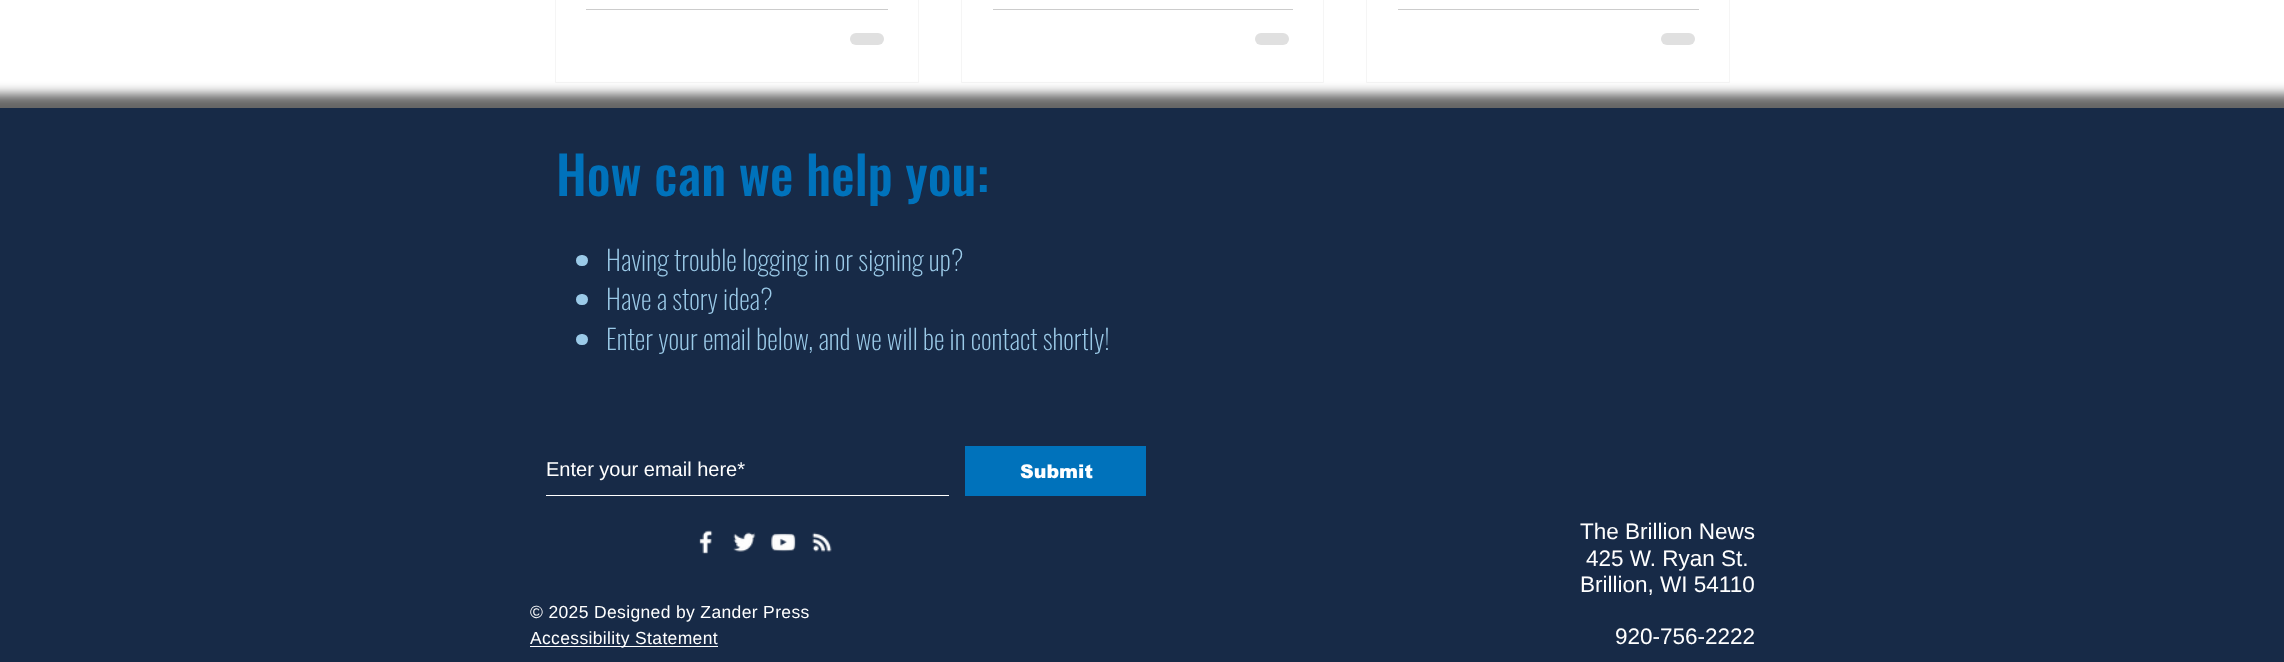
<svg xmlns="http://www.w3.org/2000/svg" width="2284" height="662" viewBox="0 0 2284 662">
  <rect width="100%" height="100%" fill="#fff"/>
  <path d="M555.5 -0.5h363v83H555.5z" fill="none" stroke="#f5f5f5"/>
  <path d="M586 9h302v1H586z" fill="#ccc"/>
  <rect x="850" y="33" width="34" height="12" rx="6" fill="#e0e0e0"/>
  <path d="M961.5 -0.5h362v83H961.5z" fill="none" stroke="#f5f5f5"/>
  <path d="M993 9h300v1H993z" fill="#ccc"/>
  <rect x="1255" y="33" width="34" height="12" rx="6" fill="#e0e0e0"/>
  <path d="M1366.5 -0.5h363v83H1366.5z" fill="none" stroke="#f5f5f5"/>
  <path d="M1398 9h301v1H1398z" fill="#ccc"/>
  <rect x="1661" y="33" width="34" height="12" rx="6" fill="#e0e0e0"/>
  <path d="M-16 94h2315v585H-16z" fill="#00000099" filter="blur(6px)"/>
  <path d="M0 108h2284v554H0z" fill="#172a47"/>
  <rect x="576" y="255" width="12" height="11" rx="5.5" fill="#9bcae8"/>
  <rect x="576" y="294" width="12" height="11" rx="5.5" fill="#9bcae8"/>
  <rect x="576" y="334" width="12" height="11" rx="5.5" fill="#9bcae8"/>
  <path d="M546 495h403v1H546z" fill="#fff"/>
  <path d="M965 446h181v50H965z" fill="#0072bb"/>
  <image x="699" y="530" width="14" height="24" href="img/1.png"/>
  <image x="733" y="532" width="23" height="20" href="img/2.png"/>
  <image x="771" y="533" width="25" height="19" href="img/3.png"/>
  <image x="812" y="532" width="20" height="20" href="img/4.png"/>
  <path d="M530 646h188v1H530z" fill="#fff"/>
  <text x="556" y="196" font-family="Oswald" font-size="52.5" font-weight="500" fill="#0072bb">How can we help you:</text>
  <g font-family="Oswald" font-size="27.5" font-weight="200" fill="#9bcae8">
    <text x="606" y="271">Having trouble logging in or signing up?</text>
    <text x="606" y="310">Have a story idea?</text>
    <text x="606" y="350">Enter your email below, and we will be in contact shortly!</text>
  </g>
  <text x="546" y="476" font-family="Liberation Sans" font-size="20" fill="#fff">Enter your email here*</text>
  <text x="1020" y="478" font-family="arial" font-size="19" font-weight="900" fill="#fff">Submit</text>
  <g font-family="Liberation Sans" font-size="17.5" letter-spacing="0.35" fill="#fff">
    <text x="530" y="618">© 2025 Designed by Zander Press</text>
    <text x="530" y="644">Accessibility Statement</text>
  </g>
  <g font-family="Liberation Sans" font-size="22.5" fill="#fff">
    <text x="1580" y="539">The Brillion News</text>
    <text x="1586" y="566">425 W. Ryan St.</text>
    <text x="1580" y="592">Brillion, WI 54110</text>
    <text x="1615" y="644">920-756-2222</text>
  </g>
</svg>
